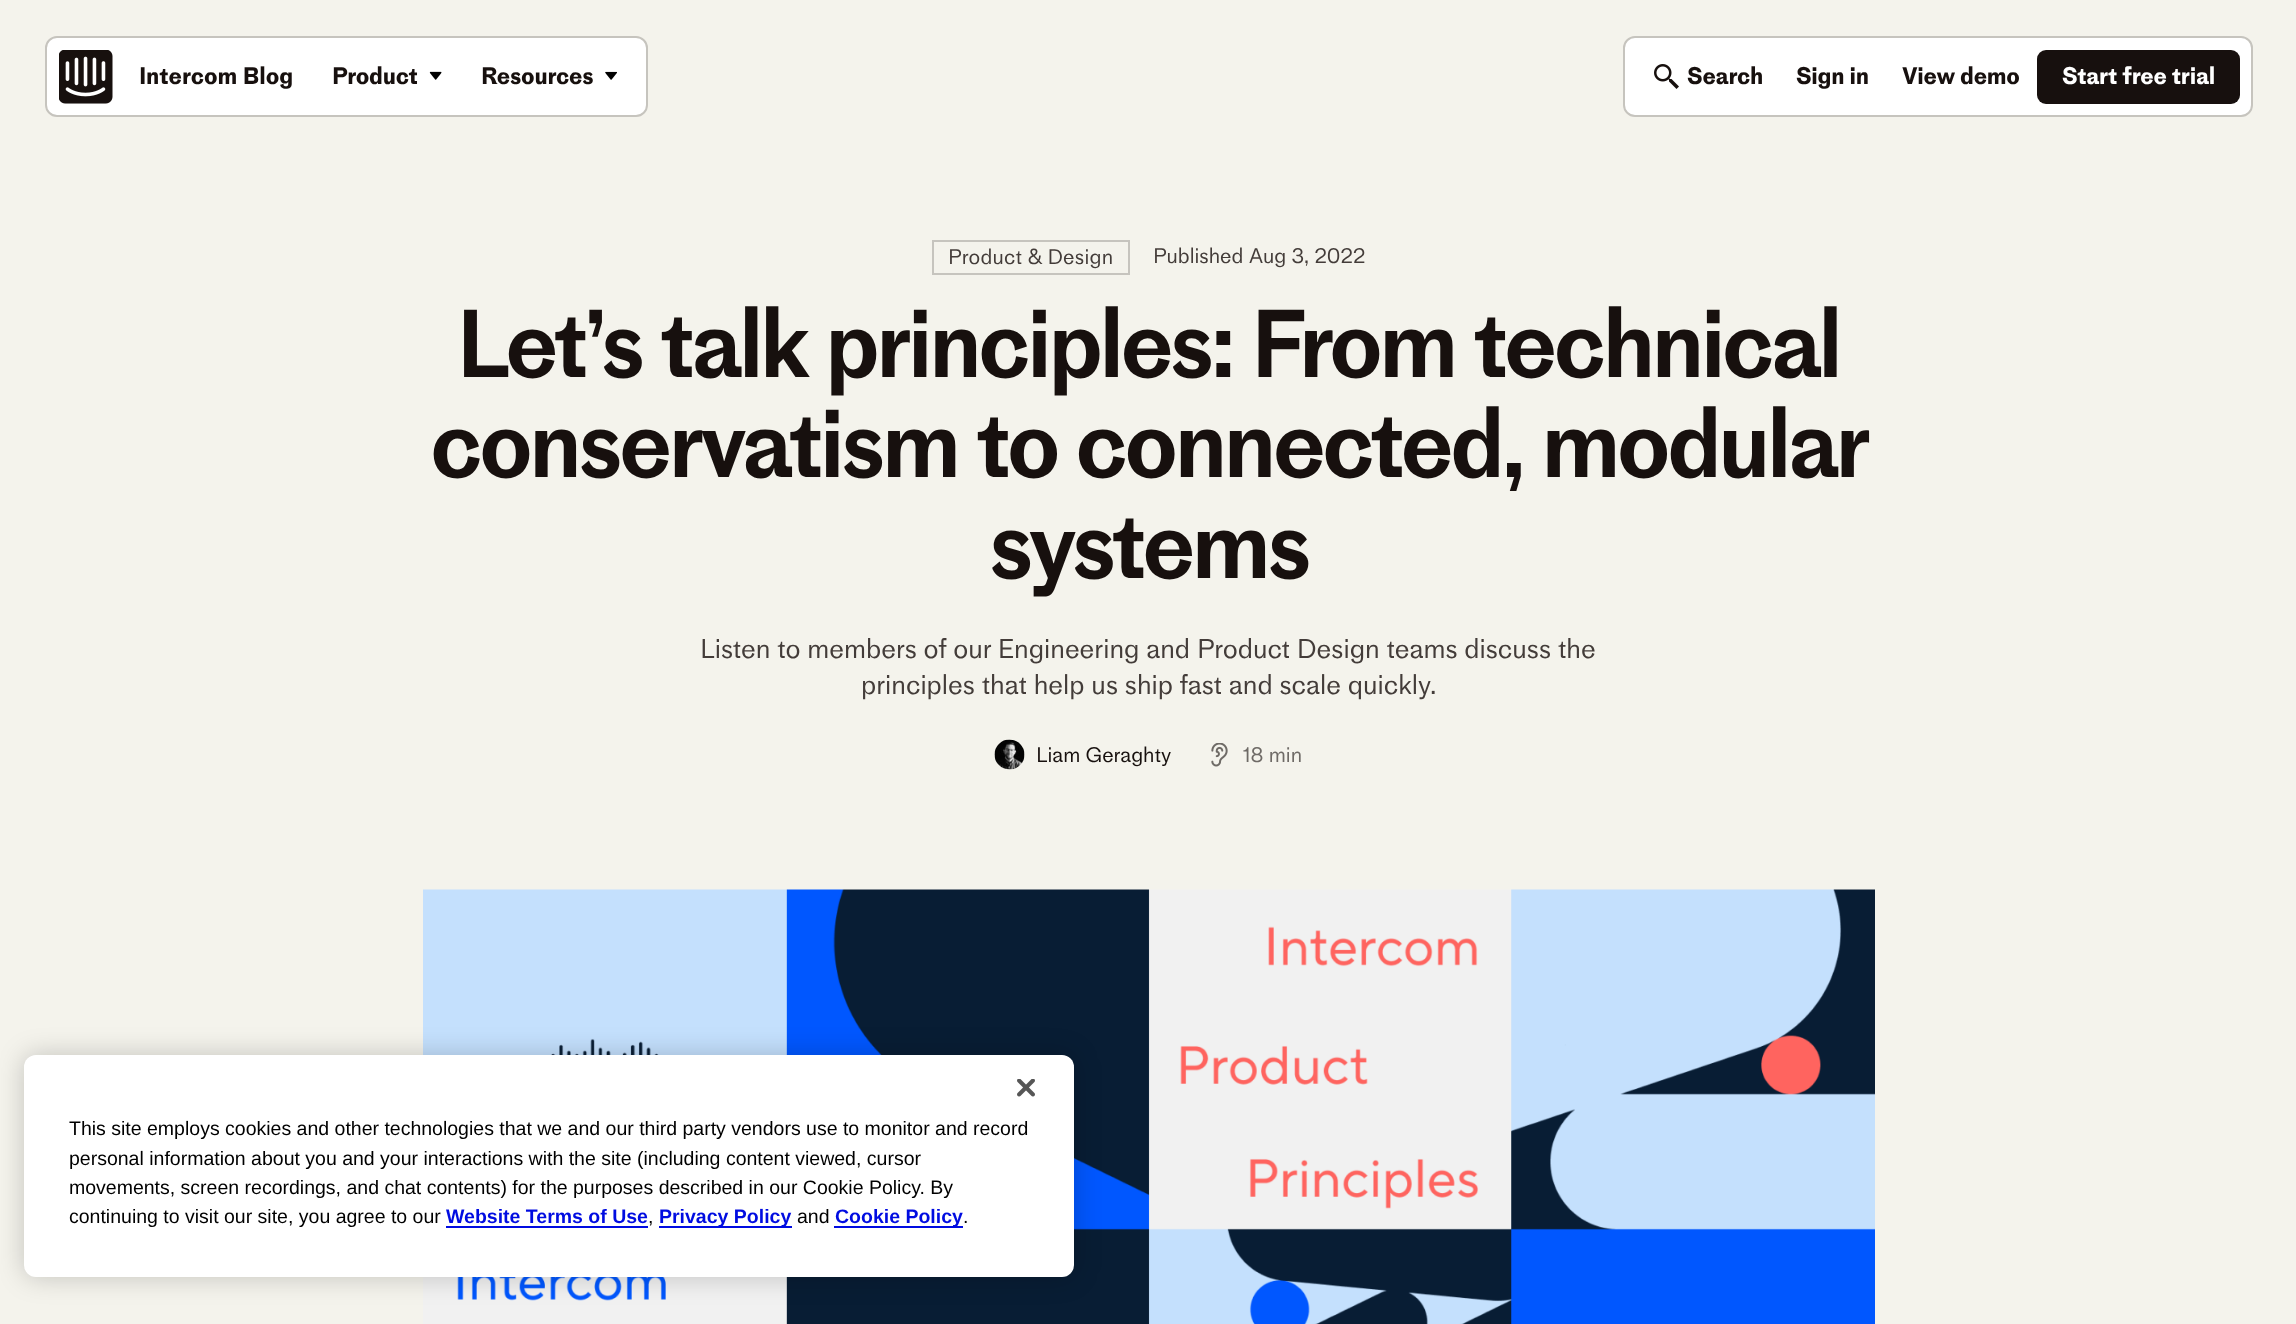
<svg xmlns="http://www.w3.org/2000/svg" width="2296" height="1324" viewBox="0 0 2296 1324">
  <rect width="100%" height="100%" fill="#f4f3ec"/>
  <rect x="46" y="37" width="601" height="79" rx="11" fill="#fff" stroke="#c6c4be" stroke-width="2"/>
  <image x="59" y="50" width="54" height="54" href="img/1.png"/>
  <image x="429" y="71" width="13" height="9" href="img/2.png"/>
  <image x="605" y="71" width="12" height="9" href="img/3.png"/>
  <rect x="1624" y="37" width="628" height="79" rx="11" fill="#fff" stroke="#c6c4be" stroke-width="2"/>
  <image x="1654" y="64" width="25" height="25" href="img/4.png"/>
  <rect x="2037" y="50" width="203" height="54" rx="9" fill="#17100e"/>
  <path d="M933 241h196v33H933z" fill="none" stroke="#c6c4be" stroke-width="2"/>
  <image x="994" y="739" width="31" height="31" href="img/5.png"/>
  <image x="1211" y="743" width="17" height="24" href="img/6.png"/>
  <image x="423" y="889" width="1452" height="435" href="img/7.png"/>
  <rect x="24" y="1055" width="1050" height="222" rx="12" fill="#00000033" filter="blur(13.5px)"/>
  <rect x="24" y="1055" width="1050" height="222" rx="12" fill="#fff"/>
  <image x="1017" y="1079" width="18" height="18" href="img/8.png"/>
  <path d="M446 1226h202v2H446z" fill="#000ce1"/>
  <path d="M659 1226h133v2H659z" fill="#000ce1"/>
  <path d="M834 1226h129v2H834z" fill="#000ce1"/>
  <text x="139" y="84" font-family="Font" font-size="24" font-weight="bold" fill="#17100e">Intercom Blog</text>
  <g font-family="Font" font-size="24" font-weight="bold" letter-spacing="-0.25" fill="#17100e">
    <text x="332" y="84">Product</text>
    <text x="481" y="84">Resources</text>
    <text x="1687" y="84">Search</text>
    <text x="1796" y="84">Sign in</text>
    <text x="1902" y="84">View demo</text>
  </g>
  <text x="2062" y="84" font-family="Font" font-size="24" font-weight="bold" letter-spacing="-0.25" fill="#fff">Start free trial</text>
  <text x="948" y="264" font-family="Font" font-size="21" letter-spacing="0.25" fill="#433c39">Product &amp; Design</text>
  <g font-family="Font" font-size="21" fill="#433c39">
    <text x="1153" y="263">Published</text>
    <text x="1249" y="263">Aug 3, 2022</text>
  </g>
  <g font-family="Font" font-size="96" font-weight="600" letter-spacing="-3.85" fill="#17100e">
    <text x="456" y="377">Let’s talk principles: From technical</text>
    <text x="430" y="477">conservatism to connected, modular</text>
    <text x="989" y="578">systems</text>
  </g>
  <g font-family="Font" font-size="27" fill="#433c39">
    <text x="700" y="658">Listen to members of our Engineering and Product Design teams discuss the</text>
    <text x="861" y="694">principles that help us ship fast and scale quickly.</text>
  </g>
  <text x="1036" y="762" font-family="Font" font-size="21" fill="#17100e">Liam Geraghty</text>
  <text x="1243" y="762" font-family="Font" font-size="21" fill="#6e6a66">18 min</text>
  <g font-family="Liberation Sans" font-size="19.5" fill="#000">
    <text x="69" y="1135">This site employs cookies and other technologies that we and our third party vendors use to monitor and record</text>
    <text x="69" y="1165">personal information about you and your interactions with the site (including content viewed, cursor</text>
    <text x="69" y="1194">movements, screen recordings, and chat contents) for the purposes described in our Cookie Policy. By</text>
    <text x="69" y="1223">continuing to visit our site, you agree to our</text>
  </g>
  <text x="446" y="1223" font-family="Liberation Sans" font-size="19.5" font-weight="bold" fill="#000ce1">Website Terms of Use</text>
  <text x="648" y="1223" font-family="Liberation Sans" font-size="19.5" fill="#000">,</text>
  <text x="659" y="1223" font-family="Liberation Sans" font-size="19.5" font-weight="bold" fill="#000ce1">Privacy Policy</text>
  <text x="797" y="1223" font-family="Liberation Sans" font-size="19.5" fill="#000">and</text>
  <text x="835" y="1223" font-family="Liberation Sans" font-size="19.5" font-weight="bold" fill="#000ce1">Cookie Policy</text>
  <text x="963" y="1223" font-family="Liberation Sans" font-size="19.5" fill="#000">.</text>
</svg>
